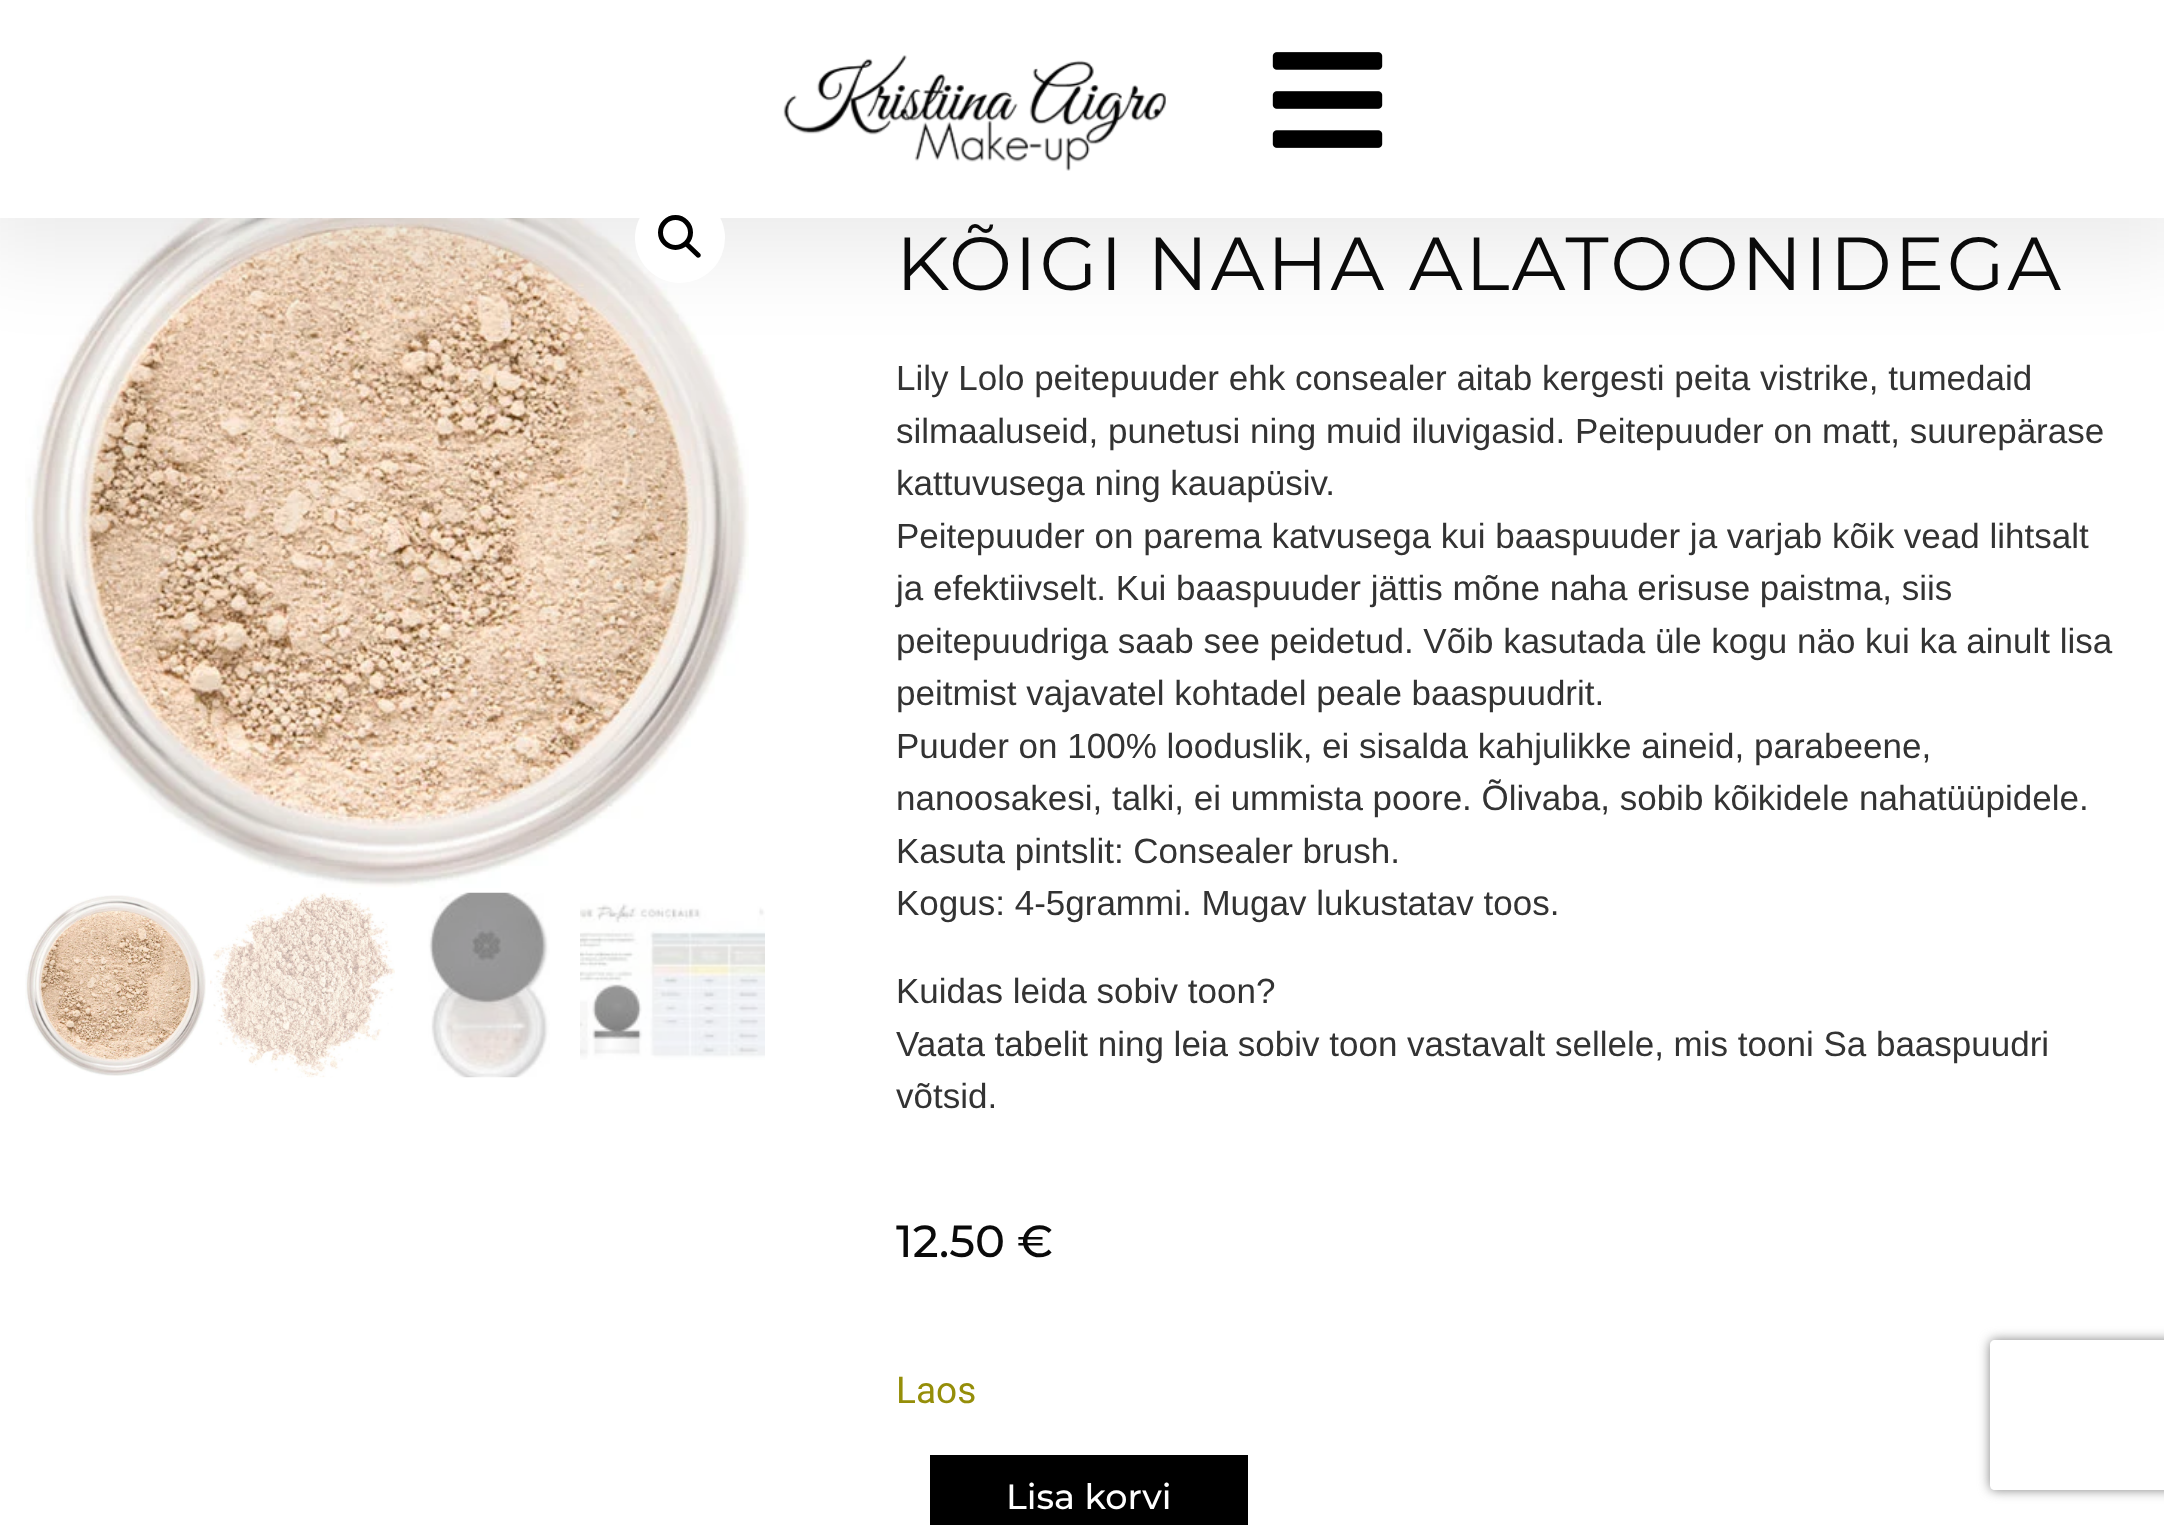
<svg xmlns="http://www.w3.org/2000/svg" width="2164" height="1525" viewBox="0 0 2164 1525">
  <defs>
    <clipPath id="clip1"><path d="M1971 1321H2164V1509H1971ZM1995 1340H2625C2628 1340 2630 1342 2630 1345V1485C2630 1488 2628 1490 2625 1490H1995C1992 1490 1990 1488 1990 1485V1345C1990 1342 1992 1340 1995 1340Z" clip-rule="evenodd"/></clipPath>
  </defs>
  <rect width="100%" height="100%" fill="#fff"/>
  <image x="25" y="218" width="724" height="670" href="img/3.png"/>
  <path d="M-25 -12h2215v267H-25z" fill="#00000014" filter="blur(44px)"/>
  <path d="M0 0h2164v218H0z" fill="#fff"/>
  <image x="783" y="55" width="383" height="116" href="img/1.png"/>
  <image x="1272" y="52" width="111" height="96" href="img/2.png"/>
  <circle cx="680" cy="238" r="45" fill="#fff"/>
  <circle cx="675.5" cy="232.5" r="15" fill="none" stroke="#000" stroke-width="5"/>
  <path d="M685.5 243C686.5 242 688 242 689 243L700 253.5C701 254.5 701 256 700 257C699 258 697 258 696.5 257L685.5 246.5C684.5 245.5 684.5 244 685.5 243Z" fill="#000"/>
  <image x="25" y="895" width="181" height="181" href="img/4.png"/>
  <image x="210" y="892" width="185" height="186" href="img/5.png"/>
  <image x="428" y="892" width="122" height="186" href="img/6.png"/>
  <image x="580" y="903" width="185" height="157" href="img/7.png"/>
  <path d="M930 1455h318v70H930z" fill="#000"/>
  <g clip-path="url(#clip1)">
    <rect x="1990" y="1340" width="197" height="150" rx="5" fill="#808080" filter="blur(6px)"/>
  </g>
  <text x="896" y="290" font-family="Montserrat" font-size="75" letter-spacing="2.5" fill="#0a0a0a">KÕIGI NAHA ALATOONIDEGA</text>
  <g font-family="Liberation Sans" font-size="35" fill="#333">
    <text x="896" y="390">Lily Lolo peitepuuder ehk consealer aitab kergesti peita vistrike, tumedaid</text>
    <text x="896" y="443">silmaaluseid, punetusi ning muid iluvigasid. Peitepuuder on matt, suurepärase</text>
    <text x="896" y="495">kattuvusega ning kauapüsiv.</text>
    <text x="896" y="548">Peitepuuder on parema katvusega kui baaspuuder ja varjab kõik vead lihtsalt</text>
    <text x="896" y="600">ja efektiivselt. Kui baaspuuder jättis mõne naha erisuse paistma, siis</text>
    <text x="896" y="653">peitepuudriga saab see peidetud. Võib kasutada üle kogu näo kui ka ainult lisa</text>
    <text x="896" y="705">peitmist vajavatel kohtadel peale baaspuudrit.</text>
    <text x="896" y="758">Puuder on 100% looduslik, ei sisalda kahjulikke aineid, parabeene,</text>
    <text x="896" y="810">nanoosakesi, talki, ei ummista poore. Õlivaba, sobib kõikidele nahatüüpidele.</text>
    <text x="896" y="863">Kasuta pintslit: Consealer brush.</text>
    <text x="896" y="915">Kogus: 4-5grammi. Mugav lukustatav toos.</text>
    <text x="896" y="1003">Kuidas leida sobiv toon?</text>
    <text x="896" y="1056">Vaata tabelit ning leia sobiv toon vastavalt sellele, mis tooni Sa baaspuudri</text>
    <text x="896" y="1108">võtsid.</text>
  </g>
  <text x="896" y="1257" font-family="Montserrat" font-size="45" font-weight="500" fill="#0a0a0a">12.50 €</text>
  <text x="896" y="1403" font-family="Roboto" font-size="37" fill="#958e09">Laos</text>
  <text x="1006" y="1509" font-family="Montserrat" font-size="35" font-weight="500" fill="#fff">Lisa korvi</text>
</svg>
